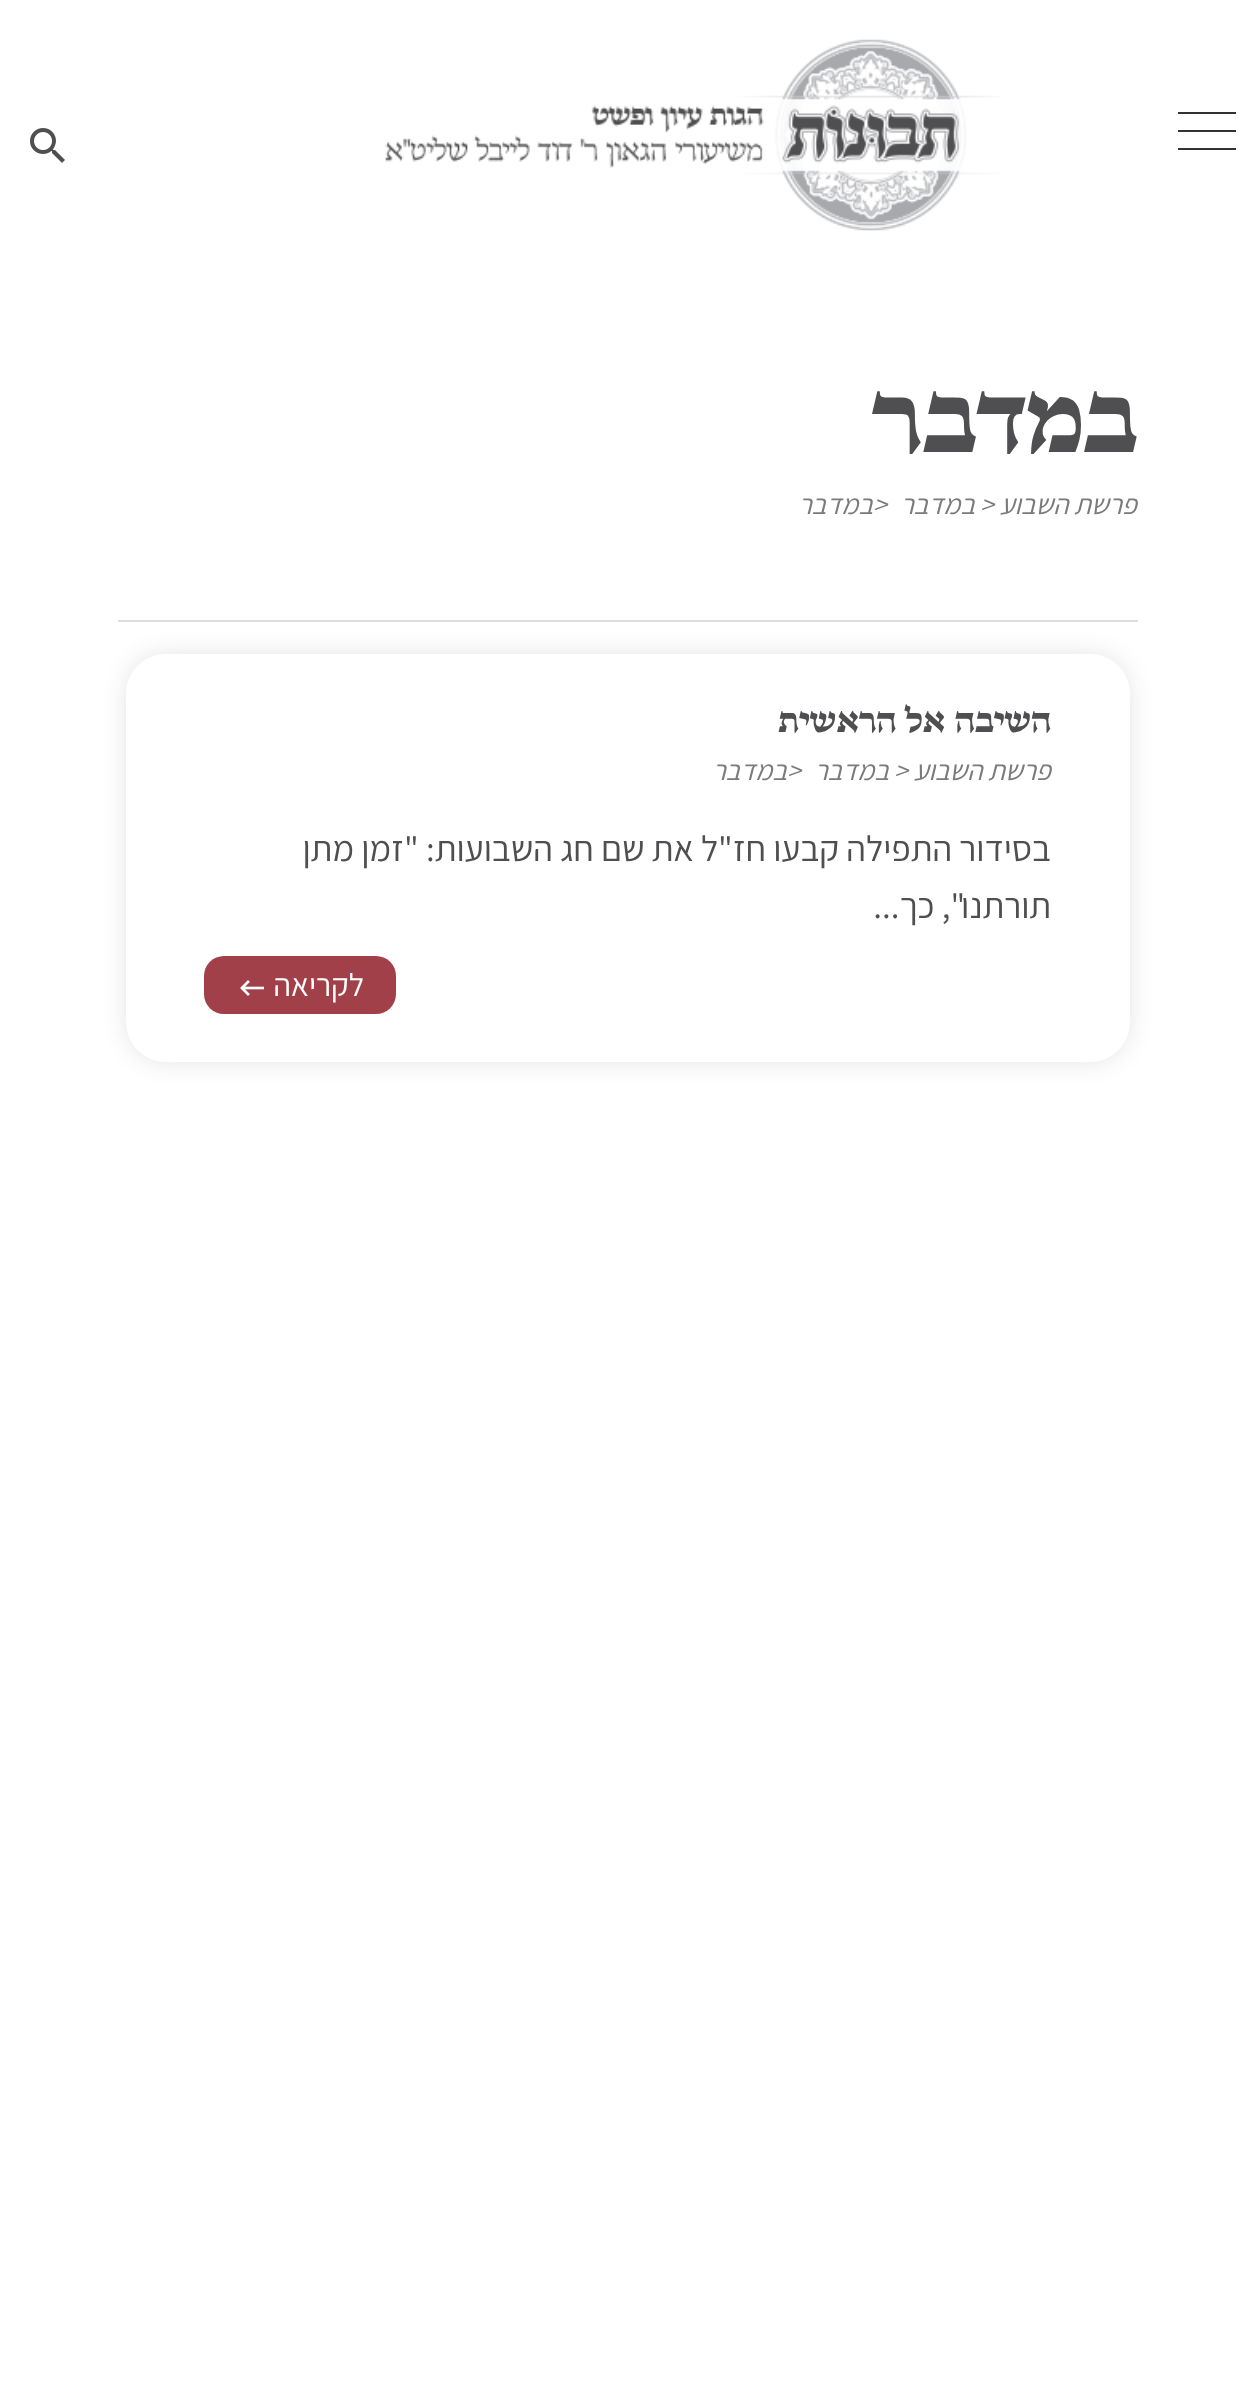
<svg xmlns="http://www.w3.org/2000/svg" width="1253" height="2406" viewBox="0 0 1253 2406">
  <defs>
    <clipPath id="clip1"><path d="M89 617H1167V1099H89ZM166 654H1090C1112 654 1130 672 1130 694V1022C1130 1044 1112 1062 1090 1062H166C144 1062 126 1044 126 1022V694C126 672 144 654 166 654Z" clip-rule="evenodd"/></clipPath>
  </defs>
  <rect width="100%" height="100%" fill="#fff"/>
  <path d="M1178 112h58v2H1178z" fill="#333"/>
  <path d="M1178 130h58v2H1178z" fill="#333"/>
  <path d="M1178 148h58v2H1178z" fill="#333"/>
  <image x="385" y="39" width="616" height="192" href="img/1.png"/>
  <image x="30" y="128" width="35" height="35" href="img/2.png"/>
  <path d="M118 620h1020v2H118z" fill="#ddd"/>
  <g clip-path="url(#clip1)">
    <rect x="126" y="654" width="1004" height="408" rx="40" fill="#0000001a" filter="blur(12px)"/>
  </g>
  <rect x="204" y="956" width="192" height="58" rx="20" fill="#a14049"/>
  <image x="240" y="980" width="24" height="16" href="img/3.png"/>
  <text x="1137" y="452" font-family="Bona Nova" font-size="104" font-weight="bold" direction="rtl" fill="#4f4f51">במדבר</text>
  <text x="1137" y="514" font-family="Assistant" font-size="28" font-style="italic" direction="rtl" fill="#7b7b7b">פרשת השבוע</text>
  <text x="980" y="514" font-family="Assistant" font-size="28" font-style="italic" fill="#7b7b7b">&gt;</text>
  <text x="975" y="514" font-family="Assistant" font-size="28" font-style="italic" direction="rtl" fill="#7b7b7b">במדבר</text>
  <text x="873" y="514" font-family="Assistant" font-size="28" font-style="italic" fill="#7b7b7b">&gt;</text>
  <text x="873" y="514" font-family="Assistant" font-size="28" font-style="italic" direction="rtl" fill="#7b7b7b">במדבר</text>
  <text x="1051" y="732" font-family="Bona Nova" font-size="36" font-weight="bold" direction="rtl" fill="#4f4f51">השיבה אל הראשית</text>
  <text x="1051" y="780" font-family="Assistant" font-size="28" font-style="italic" direction="rtl" fill="#7b7b7b">פרשת השבוע</text>
  <text x="894" y="780" font-family="Assistant" font-size="28" font-style="italic" fill="#7b7b7b">&gt;</text>
  <text x="889" y="780" font-family="Assistant" font-size="28" font-style="italic" direction="rtl" fill="#7b7b7b">במדבר</text>
  <text x="787" y="780" font-family="Assistant" font-size="28" font-style="italic" fill="#7b7b7b">&gt;</text>
  <text x="787" y="780" font-family="Assistant" font-size="28" font-style="italic" direction="rtl" fill="#7b7b7b">במדבר</text>
  <g font-family="Assistant" font-size="36" direction="rtl" fill="#4f4f51">
    <text x="1051" y="861">בסידור התפילה קבעו חז"ל את שם חג השבועות: "זמן מתן</text>
    <text x="1051" y="918">תורתנו", כך...</text>
  </g>
  <text x="364" y="996" font-family="Assistant" font-size="32" direction="rtl" fill="#fff">לקריאה</text>
</svg>
